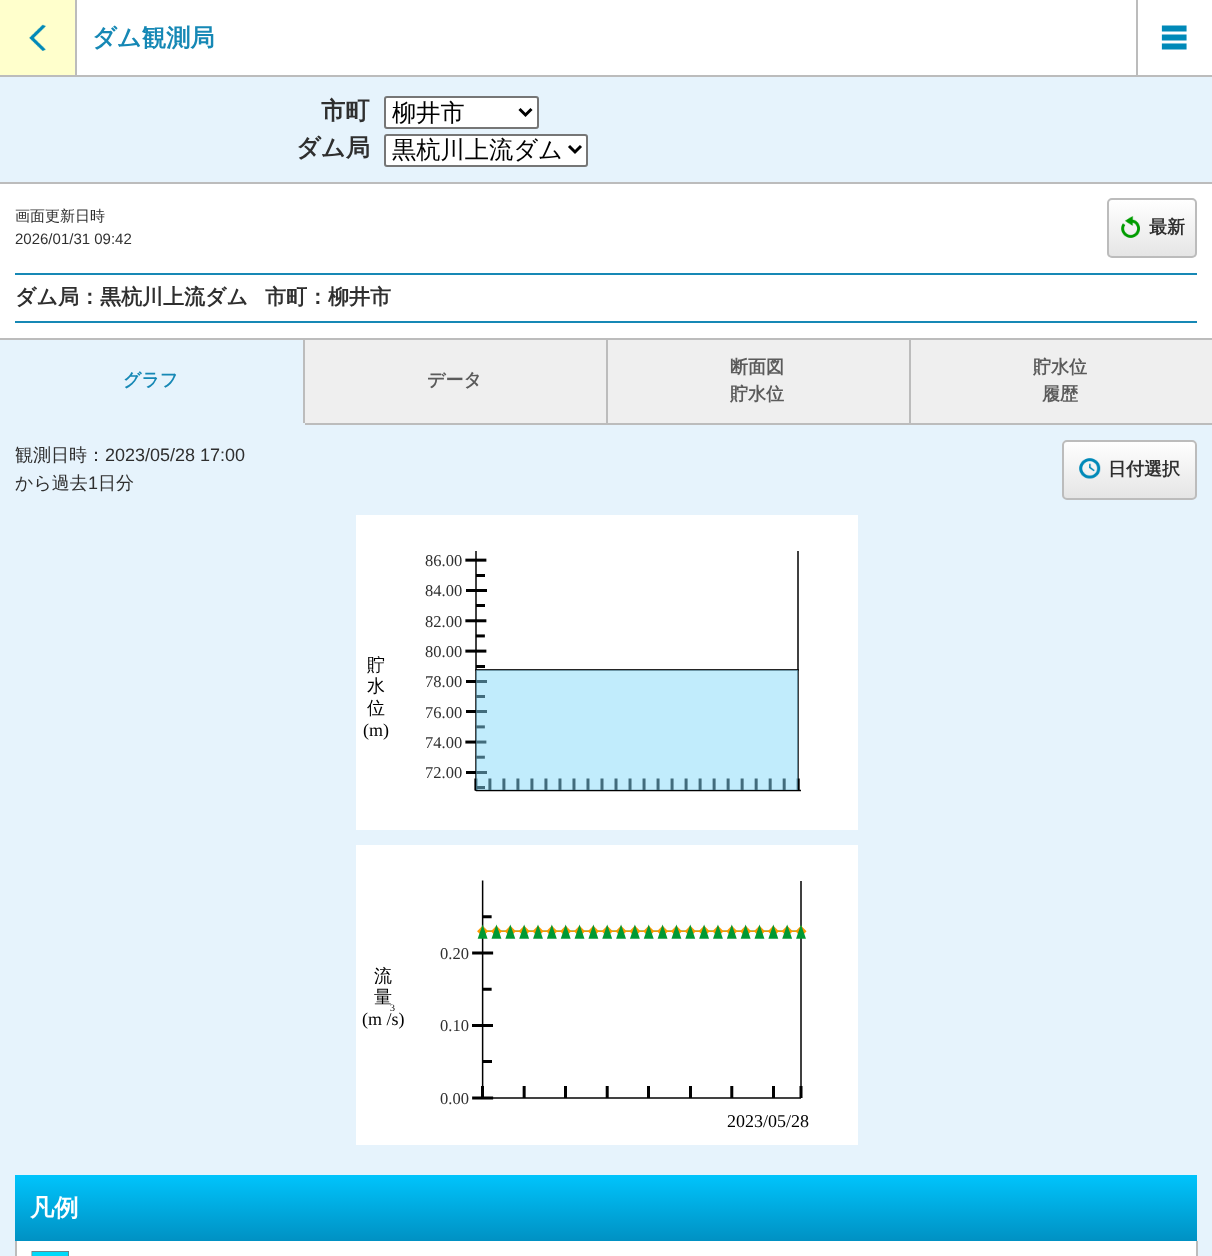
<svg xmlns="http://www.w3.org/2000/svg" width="1212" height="1256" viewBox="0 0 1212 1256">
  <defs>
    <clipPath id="clip1"><rect x="1107" y="198" width="90" height="60" rx="5"/></clipPath>
    <linearGradient id="g1" gradientUnits="userSpaceOnUse" x1="1152" y1="200" x2="1152" y2="257"><stop offset="0" stop-color="#fff"/><stop offset="1" stop-color="#e5e5e5"/></linearGradient>
    <clipPath id="clip2"><rect x="1062" y="440" width="135" height="60" rx="5"/></clipPath>
    <linearGradient id="g2" gradientUnits="userSpaceOnUse" x1="1130" y1="441" x2="1130" y2="498"><stop offset="0" stop-color="#fff"/><stop offset="1" stop-color="#e5e5e5"/></linearGradient>
    <linearGradient id="g3" gradientUnits="userSpaceOnUse" x1="606" y1="1175" x2="606" y2="1241"><stop offset="0" stop-color="#00c4fc"/><stop offset="1" stop-color="#0091c3"/></linearGradient>
  </defs>
  <rect width="100%" height="100%" fill="#fff"/>
  <path d="M75 0h2v77H75z" fill="#bcbcbc"/>
  <path d="M0 75h1212v2H0z" fill="#bcbcbc"/>
  <path d="M0 0h75v75H0z" fill="#ffc"/>
  <image x="29" y="24" width="17" height="27" href="img/1.png"/>
  <path d="M1136 0h2v77H1136z" fill="#bcbcbc"/>
  <image x="1161" y="25" width="26" height="25" href="img/2.png"/>
  <path d="M0 77h1212v105H0z" fill="#e6f3fc"/>
  <path d="M0 182h1212v2H0z" fill="#bcbcbc"/>
  <rect x="385" y="97" width="153" height="31" rx="2" fill="#fff" stroke="#767676" stroke-width="2"/>
  <path d="M519.5 109L525.5 115L531.5 109" fill="none" stroke="#000" stroke-width="3"/>
  <rect x="385" y="135" width="202" height="31" rx="2" fill="#fff" stroke="#767676" stroke-width="2"/>
  <path d="M569 146L575 152L581 146" fill="none" stroke="#000" stroke-width="3"/>
  <g clip-path="url(#clip1)">
    <path d="M1107 200h90v57H1107z" fill="url(#g1)"/>
  </g>
  <rect x="1108" y="199" width="88" height="58" rx="4" fill="none" stroke="#bcbcbc" stroke-width="2"/>
  <image x="1121" y="216" width="19" height="22" href="img/3.png"/>
  <path d="M15 273h1182v2H15z" fill="#1688b5"/>
  <path d="M15 321h1182v2H15z" fill="#1688b5"/>
  <path d="M0 340h303v83H0z" fill="#e6f3fc"/>
  <path d="M909 338h303v2H909z" fill="#bcbcbc"/>
  <path d="M909 423h303v2H909z" fill="#bcbcbc"/>
  <path d="M909 338h2v87H909z" fill="#bcbcbc"/>
  <path d="M606 338h305v2H606z" fill="#bcbcbc"/>
  <path d="M606 423h305v2H606z" fill="#bcbcbc"/>
  <path d="M606 338h2v87H606z" fill="#bcbcbc"/>
  <path d="M303 338h305v2H303z" fill="#bcbcbc"/>
  <path d="M303 423h305v2H303z" fill="#bcbcbc"/>
  <path d="M303 338h2v87H303z" fill="#bcbcbc"/>
  <path d="M0 338h305v2H0z" fill="#bcbcbc"/>
  <path d="M0 423h305v2H0z" fill="#e6f3fc"/>
  <path d="M305 340h301v83H305z" fill="#efefef"/>
  <path d="M608 340h301v83H608z" fill="#efefef"/>
  <path d="M911 340h301v83H911z" fill="#efefef"/>
  <path d="M0 425h1212v831H0z" fill="#e6f3fc"/>
  <g clip-path="url(#clip2)">
    <path d="M1062 441h135v57H1062z" fill="url(#g2)"/>
  </g>
  <rect x="1063" y="441" width="133" height="58" rx="4" fill="none" stroke="#bcbcbc" stroke-width="2"/>
  <image x="1079" y="458" width="22" height="21" href="img/4.png"/>
  <path d="M356 515h502v315H356z" fill="#fff"/>
  <image x="465" y="551" width="336" height="241" href="img/5.png"/>
  <path d="M356 845h502v300H356z" fill="#fff"/>
  <image x="472" y="880" width="335" height="220" href="img/6.png"/>
  <path d="M15 1175h1182v66H15z" fill="url(#g3)"/>
  <path d="M17 1241h1179v15H17z" fill="#fff"/>
  <path d="M1196 1241h2v15H1196z" fill="#bcbcbc"/>
  <path d="M15 1241h2v15H15z" fill="#bcbcbc"/>
  <image x="31" y="1251" width="38" height="5" href="img/7.png"/>
  <text x="92" y="46" font-family="WenQuanYi Zen Hei" font-size="24.25" font-weight="bold" fill="#1688b5">ダム観測局</text>
  <text x="321" y="119" font-family="WenQuanYi Zen Hei" font-size="24.25" font-weight="bold" fill="#2f2f2f">市町</text>
  <text x="392" y="121" font-family="WenQuanYi Zen Hei" font-size="24.25" font-weight="500" fill="#000">柳井市</text>
  <text x="296" y="156" font-family="WenQuanYi Zen Hei" font-size="24.25" font-weight="bold" fill="#2f2f2f">ダム局</text>
  <text x="392" y="158" font-family="WenQuanYi Zen Hei" font-size="24.25" font-weight="500" fill="#000">黒杭川上流ダム</text>
  <text x="15" y="221" font-family="WenQuanYi Zen Hei" font-size="15" font-weight="500" fill="#2f2f2f">画面更新日時</text>
  <text x="15" y="244" font-family="Liberation Sans" font-size="15" fill="#2f2f2f">2026/01/31 09:42</text>
  <text x="1149" y="233" font-family="WenQuanYi Zen Hei" font-size="18" font-weight="bold" fill="#2f2f2f">最新</text>
  <g font-family="WenQuanYi Zen Hei" font-size="21" font-weight="bold" fill="#2f2f2f">
    <text x="15" y="304">ダム局：黒杭川上流ダム</text>
    <text x="265" y="304">市町：柳井市</text>
  </g>
  <text x="123" y="386" font-family="WenQuanYi Zen Hei" font-size="18" font-weight="bold" fill="#1688b5">グラフ</text>
  <g font-family="WenQuanYi Zen Hei" font-size="18" font-weight="bold" fill="#5b5b5b">
    <text x="427" y="386">データ</text>
    <text x="730" y="373">断面図</text>
    <text x="730" y="400">貯水位</text>
    <text x="1033" y="373">貯水位</text>
    <text x="1042" y="400">履歴</text>
  </g>
  <text x="15" y="461" font-family="WenQuanYi Zen Hei" font-size="18" font-weight="500" fill="#2f2f2f">観測日時：</text>
  <text x="105" y="461" font-family="Liberation Sans" font-size="18" fill="#2f2f2f">2023/05/28 17:00</text>
  <text x="15" y="489" font-family="WenQuanYi Zen Hei" font-size="18" font-weight="500" fill="#2f2f2f">から過去</text>
  <text x="88" y="489" font-family="Liberation Sans" font-size="18" fill="#2f2f2f">1</text>
  <text x="98" y="489" font-family="WenQuanYi Zen Hei" font-size="18" font-weight="500" fill="#2f2f2f">日分</text>
  <text x="1108" y="475" font-family="WenQuanYi Zen Hei" font-size="18" font-weight="bold" fill="#2f2f2f">日付選択</text>
  <g font-family="Liberation Serif" font-size="16.5" fill="#2f2f2f">
    <text x="425" y="566">86.00</text>
    <text x="425" y="596">84.00</text>
    <text x="425" y="627">82.00</text>
    <text x="425" y="657">80.00</text>
  </g>
  <g font-family="WenQuanYi Zen Hei" font-size="18" font-weight="500" fill="#000">
    <text x="367" y="671">貯</text>
    <text x="367" y="692">水</text>
  </g>
  <text x="425" y="687" font-family="Liberation Serif" font-size="16.5" fill="#2f2f2f">78.00</text>
  <text x="367" y="714" font-family="WenQuanYi Zen Hei" font-size="18" font-weight="500" fill="#000">位</text>
  <text x="425" y="718" font-family="Liberation Serif" font-size="16.5" fill="#2f2f2f">76.00</text>
  <text x="363" y="736" font-family="Liberation Serif" font-size="18" fill="#000">(m)</text>
  <g font-family="Liberation Serif" font-size="16.5" fill="#2f2f2f">
    <text x="425" y="748">74.00</text>
    <text x="425" y="778">72.00</text>
    <text x="440" y="959">0.20</text>
  </g>
  <g font-family="WenQuanYi Zen Hei" font-size="18" font-weight="500" fill="#000">
    <text x="374" y="982">流</text>
    <text x="374" y="1003">量</text>
  </g>
  <text x="390" y="1011" font-family="Liberation Serif" font-size="10" fill="#000">3</text>
  <text x="362" y="1025" font-family="Liberation Serif" font-size="18" fill="#000">(m /s)</text>
  <g font-family="Liberation Serif" font-size="16.5" fill="#2f2f2f">
    <text x="440" y="1031">0.10</text>
    <text x="440" y="1104">0.00</text>
  </g>
  <text x="727" y="1127" font-family="Liberation Serif" font-size="18" fill="#000">2023/05/28</text>
  <text x="30" y="1216" font-family="WenQuanYi Zen Hei" font-size="24.25" font-weight="bold" fill="#fff">凡例</text>
</svg>
